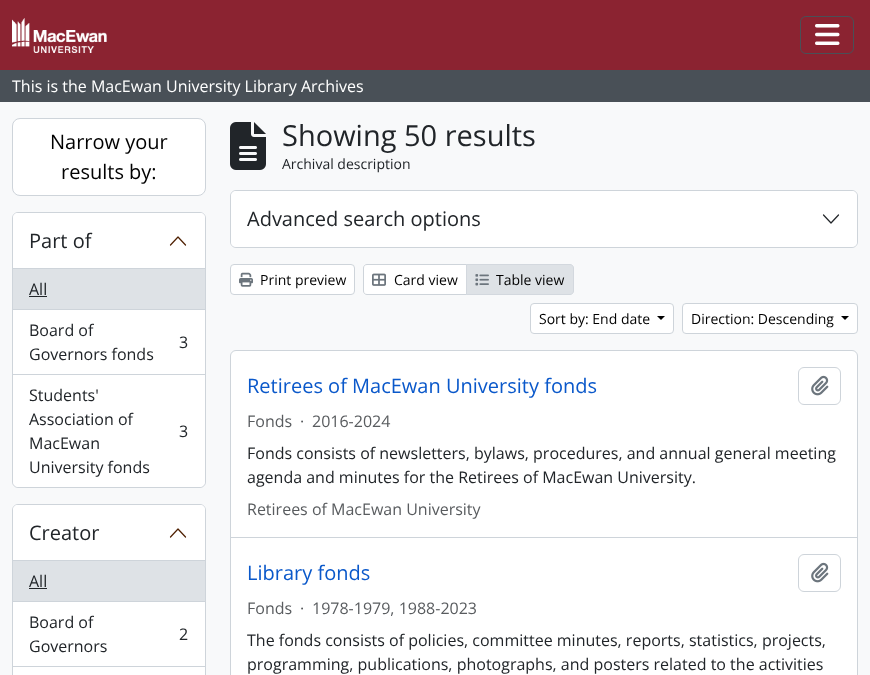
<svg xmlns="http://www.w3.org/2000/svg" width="870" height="675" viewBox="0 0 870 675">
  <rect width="100%" height="100%" fill="#f8f9fa"/>
  <path d="M0 0h870v70H0z" fill="#8b2331"/>
  <image x="12" y="18" width="95" height="35" href="img/1.png"/>
  <rect x="800.5" y="16.5" width="53" height="37" rx="5.5" fill="none" stroke="#495057"/>
  <image x="815" y="24" width="25" height="21" href="img/2.png"/>
  <path d="M0 70h870v32H0z" fill="#495057"/>
  <rect x="12.5" y="118.5" width="193" height="77" rx="7.5" fill="#fff" stroke="#ced4da"/>
  <rect x="12.5" y="212.5" width="193" height="275" rx="5.5" fill="#fff" stroke="#ced4da"/>
  <path d="M18 213H200C203 213 205 215 205 218V269H13V218C13 215 15 213 18 213Z" fill="#fff"/>
  <path d="M13 268h192v1H13z" fill="#ced4da"/>
  <path d="M185.5 245L178 237L170.5 245" fill="none" stroke="#4e1f00" stroke-width="1.2" stroke-linecap="round" stroke-linejoin="round"/>
  <path d="M13 269h192v40H13z" fill="#dee2e6"/>
  <path d="M13 309h192v1H13z" fill="#ced4da"/>
  <path d="M29 296h18v1H29z" fill="#212529"/>
  <path d="M13 374h192v1H13z" fill="#ced4da"/>
  <path d="M13 375H205V481C205 484.5 202.5 487 199 487H19C15.5 487 13 484.5 13 481Z" fill="#fff"/>
  <rect x="12.5" y="504.5" width="193" height="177" rx="5.5" fill="#fff" stroke="#ced4da"/>
  <path d="M18 505H200C203 505 205 507 205 510V561H13V510C13 507 15 505 18 505Z" fill="#fff"/>
  <path d="M13 560h192v1H13z" fill="#ced4da"/>
  <path d="M185.5 537L178 529L170.5 537" fill="none" stroke="#4e1f00" stroke-width="1.2" stroke-linecap="round" stroke-linejoin="round"/>
  <path d="M13 561h192v40H13z" fill="#dee2e6"/>
  <path d="M13 601h192v1H13z" fill="#ced4da"/>
  <path d="M29 588h18v1H29z" fill="#212529"/>
  <path d="M13 666h192v1H13z" fill="#ced4da"/>
  <image x="230" y="122" width="36" height="48" href="img/3.png"/>
  <rect x="230.5" y="190.5" width="627" height="57" rx="5.5" fill="none" stroke="#ced4da"/>
  <rect x="231" y="191" width="626" height="56" rx="5" fill="#fff"/>
  <path d="M823.5 215L831 223L838.5 215" fill="none" stroke="#212529" stroke-width="1.2" stroke-linecap="round" stroke-linejoin="round"/>
  <rect x="230.5" y="264.5" width="124" height="30" rx="3.5" fill="#fff" stroke="#ced4da"/>
  <image x="239" y="272" width="14" height="15" href="img/4.png"/>
  <path d="M367 264.5H466.5V294.5H367C365 294.5 363.5 293 363.5 291V268C363.5 266 365 264.5 367 264.5Z" fill="#fff" stroke="#ced4da"/>
  <image x="372" y="273" width="14" height="13" href="img/5.png"/>
  <path d="M466.5 264.5H570C572 264.5 573.5 266 573.5 268V291C573.5 293 572 294.5 570 294.5H466.5Z" fill="#dee2e6" stroke="#d3d8de"/>
  <image x="475" y="274" width="14" height="12" href="img/6.png"/>
  <rect x="530.5" y="303.5" width="143" height="30" rx="3.5" fill="#fff" stroke="#ced4da"/>
  <path d="M657 316H665L661 320Z" fill="#000"/>
  <rect x="682.5" y="303.5" width="175" height="30" rx="3.5" fill="#fff" stroke="#ced4da"/>
  <path d="M841 316H849L845 320Z" fill="#000"/>
  <rect x="230.5" y="350.5" width="627" height="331" rx="5.5" fill="#fff" stroke="#ced4da"/>
  <path d="M231 537h626v1H231z" fill="#ced4da"/>
  <rect x="798.5" y="367.5" width="42" height="37" rx="5.5" fill="none" stroke="#ced4da"/>
  <image x="811" y="375" width="18" height="21" href="img/7.png"/>
  <rect x="798.5" y="554.5" width="42" height="37" rx="5.5" fill="none" stroke="#ced4da"/>
  <image x="811" y="562" width="18" height="21" href="img/7.png"/>
  <text x="12" y="92" font-family="Open Sans" font-size="16" fill="#fff">This is the MacEwan University Library Archives</text>
  <g font-family="Open Sans" font-size="20" fill="#000">
    <text x="50" y="149">Narrow your</text>
    <text x="61" y="179">results by:</text>
  </g>
  <text x="29" y="248" font-family="Open Sans" font-size="20" fill="#212529">Part of</text>
  <g font-family="Open Sans" font-size="16" fill="#212529">
    <text x="29" y="295">All</text>
    <text x="29" y="336">Board of</text>
    <text x="179" y="348">3</text>
    <text x="29" y="360">Governors fonds</text>
    <text x="29" y="401">Students'</text>
    <text x="29" y="425">Association of</text>
    <text x="179" y="437">3</text>
    <text x="29" y="449">MacEwan</text>
    <text x="29" y="473">University fonds</text>
  </g>
  <text x="29" y="540" font-family="Open Sans" font-size="20" fill="#212529">Creator</text>
  <g font-family="Open Sans" font-size="16" fill="#212529">
    <text x="29" y="587">All</text>
    <text x="29" y="628">Board of</text>
    <text x="179" y="640">2</text>
    <text x="29" y="652">Governors</text>
  </g>
  <text x="282" y="146" font-family="Open Sans" font-size="29" fill="#212529">Showing 50 results</text>
  <text x="282" y="169" font-family="Open Sans" font-size="14" fill="#212529">Archival description</text>
  <text x="247" y="226" font-family="Open Sans" font-size="20" fill="#212529">Advanced search options</text>
  <g font-family="Open Sans" font-size="14" fill="#000">
    <text x="260" y="285">Print preview</text>
    <text x="394" y="285">Card view</text>
    <text x="496" y="285">Table view</text>
    <text x="539" y="324">Sort by: End date</text>
    <text x="691" y="324">Direction: Descending</text>
  </g>
  <text x="247" y="393" font-family="Open Sans" font-size="20" fill="#0a58ca">Retirees of MacEwan University fonds</text>
  <g font-family="Open Sans" font-size="16" fill="#595c5f">
    <text x="247" y="427">Fonds</text>
    <text x="300" y="427">·</text>
    <text x="312" y="427">2016-2024</text>
  </g>
  <g font-family="Open Sans" font-size="16" fill="#212529">
    <text x="247" y="459">Fonds consists of newsletters, bylaws, procedures, and annual general meeting</text>
    <text x="247" y="483">agenda and minutes for the Retirees of MacEwan University.</text>
  </g>
  <text x="247" y="515" font-family="Open Sans" font-size="16" fill="#595c5f">Retirees of MacEwan University</text>
  <text x="247" y="580" font-family="Open Sans" font-size="20" fill="#0a58ca">Library fonds</text>
  <g font-family="Open Sans" font-size="16" fill="#595c5f">
    <text x="247" y="614">Fonds</text>
    <text x="300" y="614">·</text>
    <text x="312" y="614">1978-1979, 1988-2023</text>
  </g>
  <g font-family="Open Sans" font-size="16" fill="#212529">
    <text x="247" y="646">The fonds consists of policies, committee minutes, reports, statistics, projects,</text>
    <text x="247" y="670">programming, publications, photographs, and posters related to the activities</text>
  </g>
</svg>
